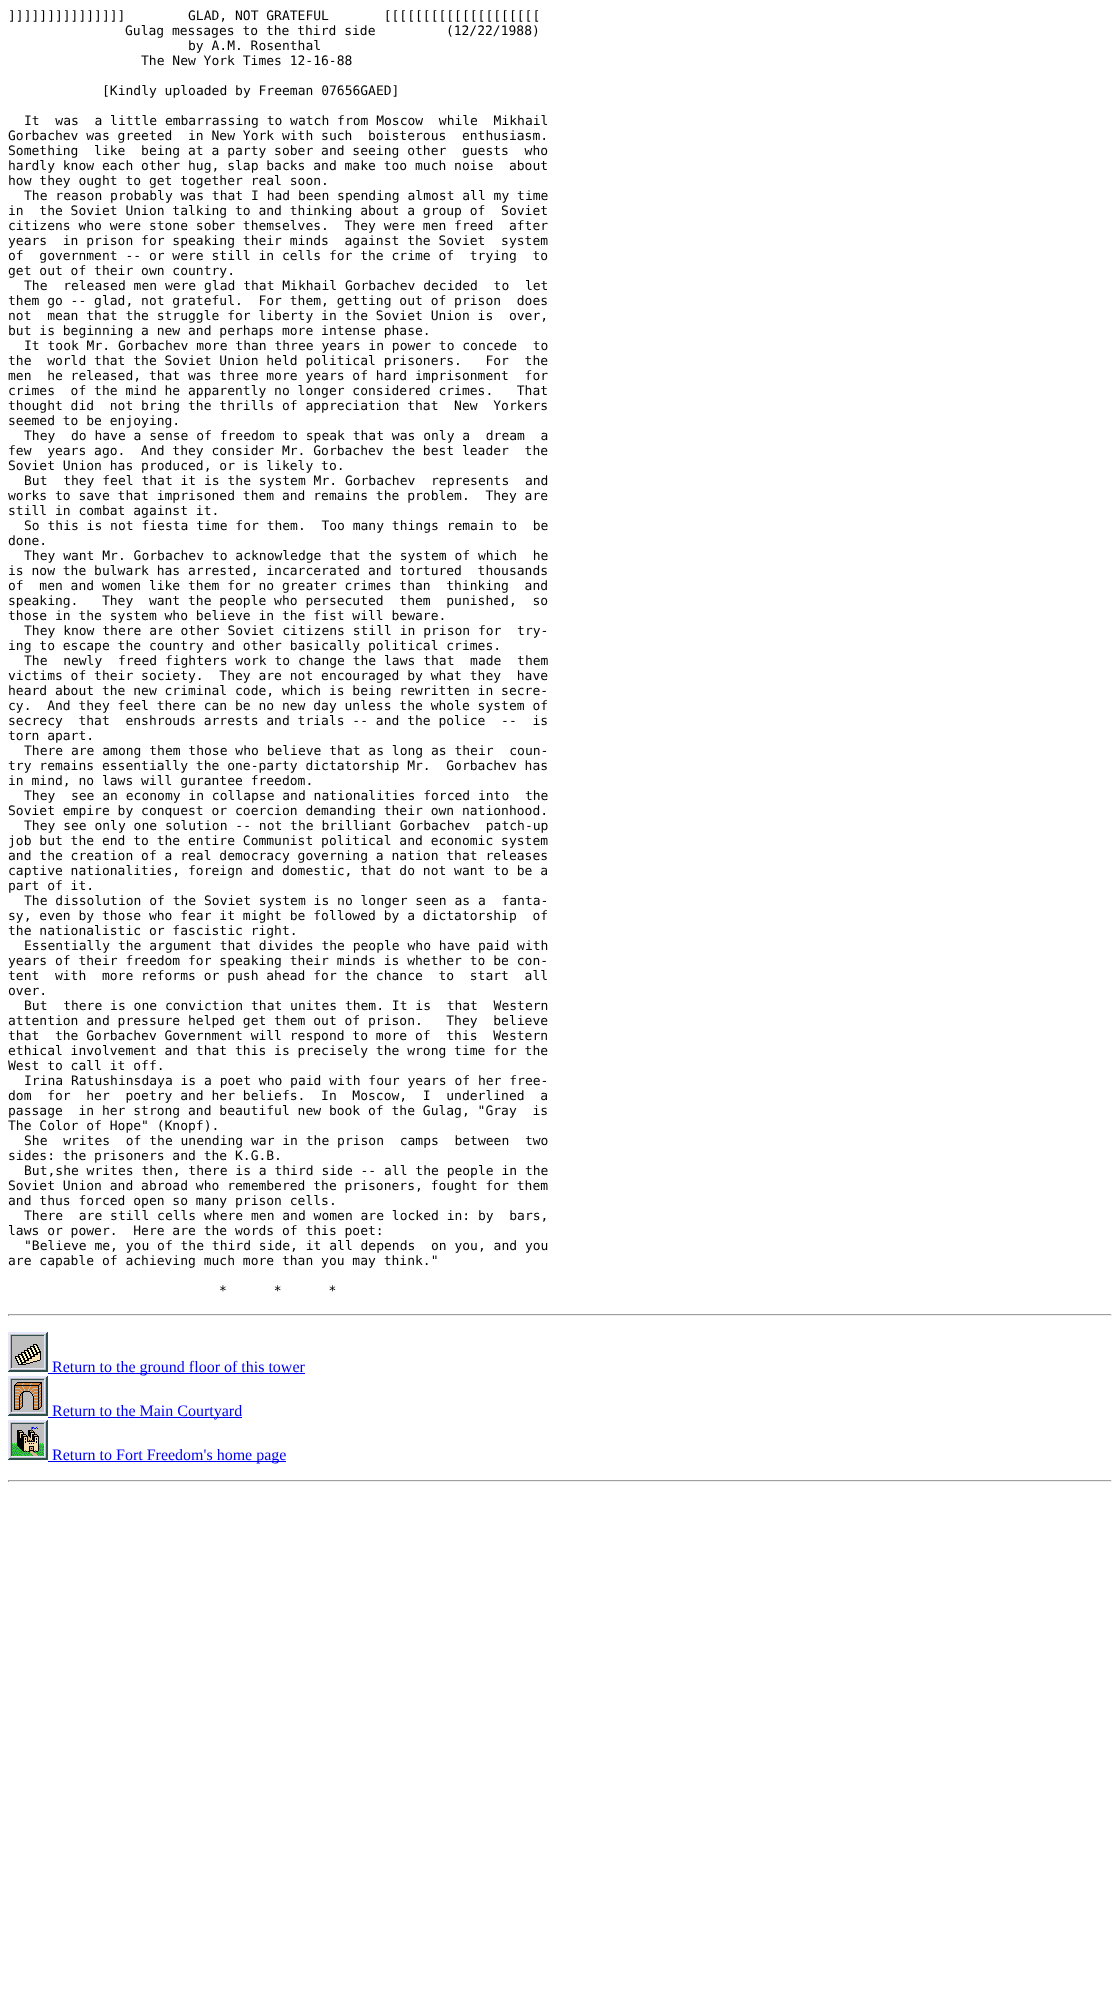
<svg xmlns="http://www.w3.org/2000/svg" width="1120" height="1997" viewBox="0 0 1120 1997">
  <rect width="100%" height="100%" fill="#fff"/>
  <path d="M8 1314h1104v1H8z" fill="#9f9f9f"/>
  <path d="M1111 1314h1v2H1111z" fill="#eee"/>
  <path d="M8 1315h1104v1H8z" fill="#eee"/>
  <path d="M8 1314h1v2H8z" fill="#9f9f9f"/>
  <image x="8" y="1332" width="40" height="40" href="img/1.png"/>
  <path d="M48 1373h257v1H48z" fill="#00e"/>
  <image x="8" y="1376" width="40" height="40" href="img/2.png"/>
  <path d="M48 1417h194v1H48z" fill="#00e"/>
  <image x="8" y="1420" width="40" height="40" href="img/3.png"/>
  <path d="M48 1461h238v1H48z" fill="#00e"/>
  <path d="M8 1480h1104v1H8z" fill="#9f9f9f"/>
  <path d="M1111 1480h1v2H1111z" fill="#eee"/>
  <path d="M8 1481h1104v1H8z" fill="#eee"/>
  <path d="M8 1480h1v2H8z" fill="#9f9f9f"/>
  <g font-family="DejaVu Sans Mono" font-size="13" fill="#000">
    <text x="8" y="20" xml:space="preserve">]]]]]]]]]]]]]]]        GLAD, NOT GRATEFUL       [[[[[[[[[[[[[[[[[[[[</text>
    <text x="125" y="35" xml:space="preserve">Gulag messages to the third side         (12/22/1988)</text>
    <text x="188" y="50">by A.M. Rosenthal</text>
    <text x="141" y="65">The New York Times 12-16-88</text>
    <text x="102" y="95">[Kindly uploaded by Freeman 07656GAED]</text>
    <text x="24" y="125" xml:space="preserve">It  was  a little embarrassing to watch from Moscow  while  Mikhail</text>
    <text x="8" y="140" xml:space="preserve">Gorbachev was greeted  in New York with such  boisterous  enthusiasm.</text>
    <text x="8" y="155" xml:space="preserve">Something  like  being at a party sober and seeing other  guests  who</text>
    <text x="8" y="170" xml:space="preserve">hardly know each other hug, slap backs and make too much noise  about</text>
    <text x="8" y="185">how they ought to get together real soon.</text>
    <text x="24" y="200">The reason probably was that I had been spending almost all my time</text>
    <text x="8" y="215" xml:space="preserve">in  the Soviet Union talking to and thinking about a group of  Soviet</text>
    <text x="8" y="230" xml:space="preserve">citizens who were stone sober themselves.  They were men freed  after</text>
    <text x="8" y="245" xml:space="preserve">years  in prison for speaking their minds  against the Soviet  system</text>
    <text x="8" y="260" xml:space="preserve">of  government -- or were still in cells for the crime of  trying  to</text>
    <text x="8" y="275">get out of their own country.</text>
    <text x="24" y="290" xml:space="preserve">The  released men were glad that Mikhail Gorbachev decided  to  let</text>
    <text x="8" y="305" xml:space="preserve">them go -- glad, not grateful.  For them, getting out of prison  does</text>
    <text x="8" y="320" xml:space="preserve">not  mean that the struggle for liberty in the Soviet Union is  over,</text>
    <text x="8" y="335">but is beginning a new and perhaps more intense phase.</text>
    <text x="24" y="350" xml:space="preserve">It took Mr. Gorbachev more than three years in power to concede  to</text>
    <text x="8" y="365" xml:space="preserve">the  world that the Soviet Union held political prisoners.   For  the</text>
    <text x="8" y="380" xml:space="preserve">men  he released, that was three more years of hard imprisonment  for</text>
    <text x="8" y="395" xml:space="preserve">crimes  of the mind he apparently no longer considered crimes.   That</text>
    <text x="8" y="410" xml:space="preserve">thought did  not bring the thrills of appreciation that  New  Yorkers</text>
    <text x="8" y="425">seemed to be enjoying.</text>
    <text x="24" y="440" xml:space="preserve">They  do have a sense of freedom to speak that was only a  dream  a</text>
    <text x="8" y="455" xml:space="preserve">few  years ago.  And they consider Mr. Gorbachev the best leader  the</text>
    <text x="8" y="470">Soviet Union has produced, or is likely to.</text>
    <text x="24" y="485" xml:space="preserve">But  they feel that it is the system Mr. Gorbachev  represents  and</text>
    <text x="8" y="500" xml:space="preserve">works to save that imprisoned them and remains the problem.  They are</text>
    <text x="8" y="515">still in combat against it.</text>
    <text x="24" y="530" xml:space="preserve">So this is not fiesta time for them.  Too many things remain to  be</text>
    <text x="8" y="545">done.</text>
    <text x="24" y="560" xml:space="preserve">They want Mr. Gorbachev to acknowledge that the system of which  he</text>
    <text x="8" y="575" xml:space="preserve">is now the bulwark has arrested, incarcerated and tortured  thousands</text>
    <text x="8" y="590" xml:space="preserve">of  men and women like them for no greater crimes than  thinking  and</text>
    <text x="8" y="605" xml:space="preserve">speaking.   They  want the people who persecuted  them  punished,  so</text>
    <text x="8" y="620">those in the system who believe in the fist will beware.</text>
    <text x="24" y="635" xml:space="preserve">They know there are other Soviet citizens still in prison for  try-</text>
    <text x="8" y="650">ing to escape the country and other basically political crimes.</text>
    <text x="24" y="665" xml:space="preserve">The  newly  freed fighters work to change the laws that  made  them</text>
    <text x="8" y="680" xml:space="preserve">victims of their society.  They are not encouraged by what they  have</text>
    <text x="8" y="695">heard about the new criminal code, which is being rewritten in secre-</text>
    <text x="8" y="710" xml:space="preserve">cy.  And they feel there can be no new day unless the whole system of</text>
    <text x="8" y="725" xml:space="preserve">secrecy  that  enshrouds arrests and trials -- and the police  --  is</text>
    <text x="8" y="740">torn apart.</text>
    <text x="24" y="755" xml:space="preserve">There are among them those who believe that as long as their  coun-</text>
    <text x="8" y="770" xml:space="preserve">try remains essentially the one-party dictatorship Mr.  Gorbachev has</text>
    <text x="8" y="785">in mind, no laws will gurantee freedom.</text>
    <text x="24" y="800" xml:space="preserve">They  see an economy in collapse and nationalities forced into  the</text>
    <text x="8" y="815">Soviet empire by conquest or coercion demanding their own nationhood.</text>
    <text x="24" y="830" xml:space="preserve">They see only one solution -- not the brilliant Gorbachev  patch-up</text>
    <text x="8" y="845">job but the end to the entire Communist political and economic system</text>
    <text x="8" y="860">and the creation of a real democracy governing a nation that releases</text>
    <text x="8" y="875">captive nationalities, foreign and domestic, that do not want to be a</text>
    <text x="8" y="890">part of it.</text>
    <text x="24" y="905" xml:space="preserve">The dissolution of the Soviet system is no longer seen as a  fanta-</text>
    <text x="8" y="920" xml:space="preserve">sy, even by those who fear it might be followed by a dictatorship  of</text>
    <text x="8" y="935">the nationalistic or fascistic right.</text>
    <text x="24" y="950">Essentially the argument that divides the people who have paid with</text>
    <text x="8" y="965">years of their freedom for speaking their minds is whether to be con-</text>
    <text x="8" y="980" xml:space="preserve">tent  with  more reforms or push ahead for the chance  to  start  all</text>
    <text x="8" y="995">over.</text>
    <text x="24" y="1010" xml:space="preserve">But  there is one conviction that unites them. It is  that  Western</text>
    <text x="8" y="1025" xml:space="preserve">attention and pressure helped get them out of prison.   They  believe</text>
    <text x="8" y="1040" xml:space="preserve">that  the Gorbachev Government will respond to more of  this  Western</text>
    <text x="8" y="1055">ethical involvement and that this is precisely the wrong time for the</text>
    <text x="8" y="1070">West to call it off.</text>
    <text x="24" y="1085">Irina Ratushinsdaya is a poet who paid with four years of her free-</text>
    <text x="8" y="1100" xml:space="preserve">dom  for  her  poetry and her beliefs.  In  Moscow,  I  underlined  a</text>
    <text x="8" y="1115" xml:space="preserve">passage  in her strong and beautiful new book of the Gulag, "Gray  is</text>
    <text x="8" y="1130">The Color of Hope" (Knopf).</text>
    <text x="24" y="1145" xml:space="preserve">She  writes  of the unending war in the prison  camps  between  two</text>
    <text x="8" y="1160">sides: the prisoners and the K.G.B.</text>
    <text x="24" y="1175">But,she writes then, there is a third side -- all the people in the</text>
    <text x="8" y="1190">Soviet Union and abroad who remembered the prisoners, fought for them</text>
    <text x="8" y="1205">and thus forced open so many prison cells.</text>
    <text x="24" y="1220" xml:space="preserve">There  are still cells where men and women are locked in: by  bars,</text>
    <text x="8" y="1235" xml:space="preserve">laws or power.  Here are the words of this poet:</text>
    <text x="24" y="1250" xml:space="preserve">"Believe me, you of the third side, it all depends  on you, and you</text>
    <text x="8" y="1265">are capable of achieving much more than you may think."</text>
    <text x="219" y="1295" xml:space="preserve">*      *      *</text>
  </g>
  <g font-family="Liberation Serif" font-size="16" fill="#00e">
    <text x="52" y="1372">Return to the ground floor of this tower</text>
    <text x="52" y="1416">Return to the Main Courtyard</text>
    <text x="52" y="1460">Return to Fort Freedom's home page</text>
  </g>
</svg>
